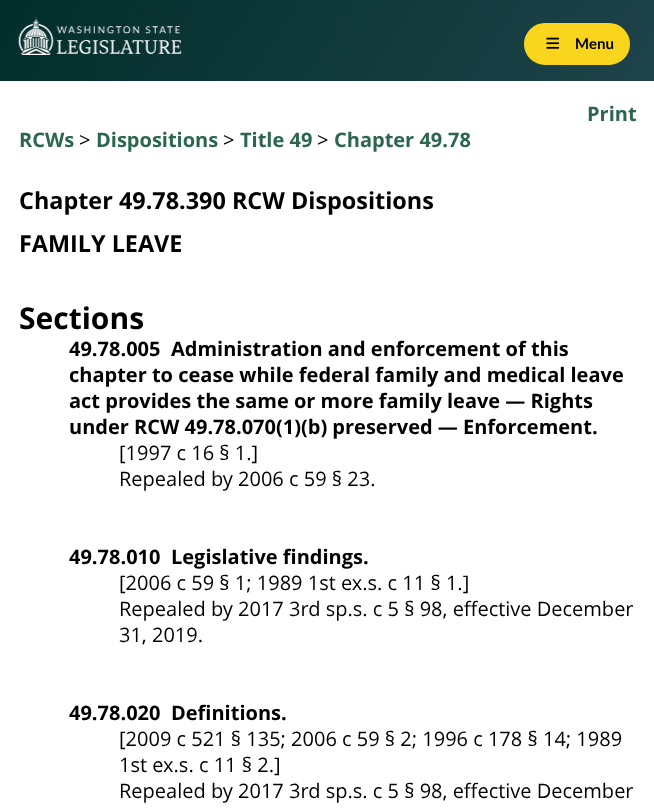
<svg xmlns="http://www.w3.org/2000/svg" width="654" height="810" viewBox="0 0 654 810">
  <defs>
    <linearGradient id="g1" gradientUnits="userSpaceOnUse" x1="571" y1="205" x2="84" y2="-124"><stop offset="0" stop-color="#1e434a"/><stop offset="1" stop-color="#012e2a"/></linearGradient>
  </defs>
  <rect width="100%" height="100%" fill="#fff"/>
  <path d="M0 0h654v81H0z" fill="url(#g1)"/>
  <image x="18" y="17" width="164" height="38" href="img/1.png"/>
  <rect x="525.5" y="24.5" width="103" height="39" rx="19.5" fill="#fad51d" stroke="#fad51d" stroke-width="3"/>
  <image x="546" y="37" width="14" height="12" href="img/2.png"/>
  <text x="575" y="49" font-family="Lato" font-size="15" font-weight="bold" fill="#000">Menu</text>
  <g font-family="Open Sans" font-size="20" font-weight="bold" fill="#2b674d">
    <text x="587" y="121">Print</text>
    <text x="19" y="147">RCWs</text>
  </g>
  <text x="79" y="147" font-family="Open Sans" font-size="20" fill="#000">&gt;</text>
  <text x="96" y="147" font-family="Open Sans" font-size="20" font-weight="bold" fill="#2b674d">Dispositions</text>
  <text x="223" y="147" font-family="Open Sans" font-size="20" fill="#000">&gt;</text>
  <text x="240" y="147" font-family="Open Sans" font-size="20" font-weight="bold" fill="#2b674d">Title 49</text>
  <text x="317" y="147" font-family="Open Sans" font-size="20" fill="#000">&gt;</text>
  <text x="334" y="147" font-family="Open Sans" font-size="20" font-weight="bold" fill="#2b674d">Chapter 49.78</text>
  <g font-family="Open Sans" font-size="23.4" font-weight="bold" fill="#000">
    <text x="19" y="209">Chapter 49.78.390 RCW Dispositions</text>
    <text x="19" y="252">FAMILY LEAVE</text>
  </g>
  <text x="19" y="329" font-family="Open Sans" font-size="30" font-weight="bold" fill="#000">Sections</text>
  <g font-family="Open Sans" font-size="20" font-weight="bold" fill="#000">
    <text x="69" y="356">49.78.005</text>
    <text x="171" y="356">Administration and enforcement of this</text>
    <text x="69" y="382">chapter to cease while federal family and medical leave</text>
    <text x="69" y="408">act provides the same or more family leave — Rights</text>
    <text x="69" y="434">under RCW 49.78.070(1)(b) preserved — Enforcement.</text>
  </g>
  <g font-family="Open Sans" font-size="20" fill="#000">
    <text x="119" y="460">[1997 c 16 § 1.]</text>
    <text x="119" y="486">Repealed by 2006 c 59 § 23.</text>
  </g>
  <g font-family="Open Sans" font-size="20" font-weight="bold" fill="#000">
    <text x="69" y="564">49.78.010</text>
    <text x="171" y="564">Legislative findings.</text>
  </g>
  <g font-family="Open Sans" font-size="20" fill="#000">
    <text x="119" y="590">[2006 c 59 § 1; 1989 1st ex.s. c 11 § 1.]</text>
    <text x="119" y="616">Repealed by 2017 3rd sp.s. c 5 § 98, effective December</text>
    <text x="119" y="642">31, 2019.</text>
  </g>
  <g font-family="Open Sans" font-size="20" font-weight="bold" fill="#000">
    <text x="69" y="720">49.78.020</text>
    <text x="171" y="720">Definitions.</text>
  </g>
  <g font-family="Open Sans" font-size="20" fill="#000">
    <text x="119" y="746">[2009 c 521 § 135; 2006 c 59 § 2; 1996 c 178 § 14; 1989</text>
    <text x="119" y="772">1st ex.s. c 11 § 2.]</text>
    <text x="119" y="798">Repealed by 2017 3rd sp.s. c 5 § 98, effective December</text>
  </g>
</svg>
